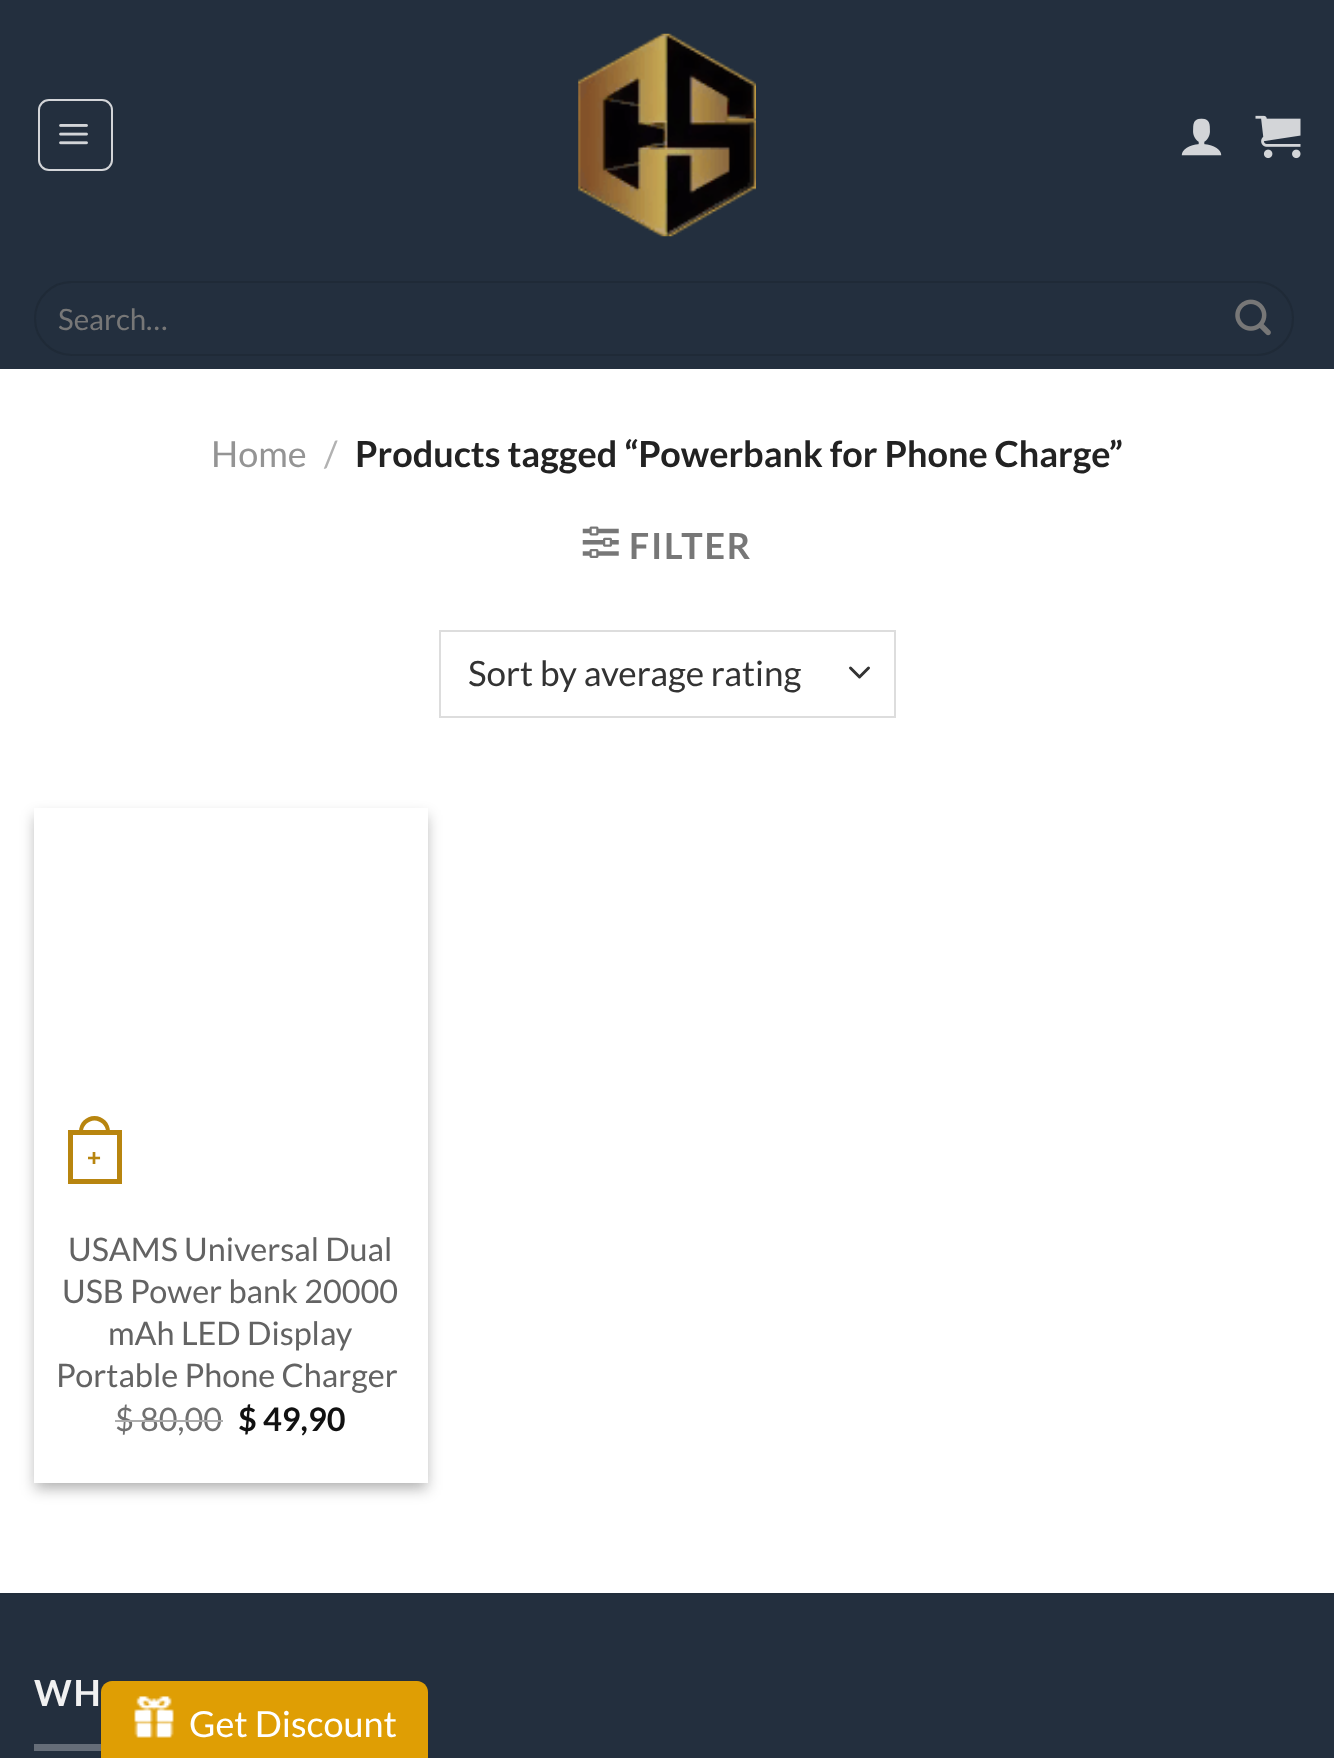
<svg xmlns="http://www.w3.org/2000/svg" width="1334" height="1758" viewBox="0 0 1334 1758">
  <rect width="100%" height="100%" fill="#fff"/>
  <path d="M0 0h1334v369H0z" fill="#232f3e"/>
  <rect x="39" y="100" width="73" height="70" rx="10" fill="none" stroke="#d3d5d8" stroke-width="2"/>
  <image x="59" y="124" width="29" height="21" href="img/1.png"/>
  <image x="578" y="33" width="178" height="204" href="img/2.png"/>
  <image x="1181" y="118" width="41" height="38" href="img/3.png"/>
  <image x="1255" y="115" width="46" height="44" href="img/4.png"/>
  <rect x="35" y="282" width="1258" height="73" rx="36.5" fill="none" stroke="#1f2a37" stroke-width="2"/>
  <image x="1235" y="299" width="36" height="37" href="img/5.png"/>
  <image x="582" y="526" width="37" height="32" href="img/6.png"/>
  <path d="M850.5 668L859.5 677L868.5 668" fill="none" stroke="#333" stroke-width="3" stroke-linecap="round" stroke-linejoin="round"/>
  <path d="M440 631h455v86H440z" fill="none" stroke="#ddd" stroke-width="2"/>
  <path d="M34 815h394v675H34z" fill="#0000003b" filter="blur(7px)"/>
  <path d="M43 824h376v657H43z" fill="#00000029" filter="blur(7px)"/>
  <path d="M34 808h394v675H34z" fill="#fff"/>
  <path d="M70.5 1132.5h49v49H70.5z" fill="none" stroke="#b8850f" stroke-width="5"/>
  <path d="M94.5 1116C103 1116 110 1123 110 1131.5V1134H79V1131.5C79 1123 86 1116 94.5 1116ZM94.5 1120.5C100.5 1120.5 106 1125.5 106 1131.5V1134H83V1131.5C83 1125.5 88.5 1120.5 94.5 1120.5Z" fill="#b8850f" fill-rule="evenodd"/>
  <path d="M0 1595h1334v163H0z" fill="#232f3e"/>
  <path d="M0 1593h1334v2H0z" fill="#212d3b"/>
  <path d="M34 1744h67v7H34z" fill="#656d78"/>
  <path d="M112 1681H417C423 1681 428 1686 428 1692V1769H101V1692C101 1686 106 1681 112 1681Z" fill="#df9e04"/>
  <image x="134" y="1696" width="40" height="42" href="img/7.png"/>
  <text x="58" y="330" font-family="Lato" font-size="29.5" fill="#777">Search…</text>
  <text x="211" y="467" font-family="Lato" font-size="36" fill="#949494">Home</text>
  <text x="324" y="467" font-family="Lato" font-size="36" fill="#b2b2b2">/</text>
  <text x="355" y="467" font-family="Lato" font-size="36" font-weight="bold" fill="#222">Products tagged “Powerbank for Phone Charge”</text>
  <text x="629" y="559" font-family="Lato" font-size="36" font-weight="bold" letter-spacing="1.75" fill="#777">FILTER</text>
  <text x="468" y="686" font-family="Lato" font-size="35" fill="#333">Sort by average rating</text>
  <text x="87" y="1166" font-family="Liberation Sans" font-size="24" font-weight="bold" fill="#b8850f">+</text>
  <g font-family="Lato" font-size="32.4" fill="#636363">
    <text x="68" y="1261">USAMS Universal Dual</text>
    <text x="62" y="1303">USB Power bank 20000</text>
    <text x="108" y="1345">mAh LED Display</text>
    <text x="56" y="1387">Portable Phone Charger</text>
  </g>
  <text x="115" y="1431" font-family="Lato" font-size="32.4" fill="#707070">$ 80,00</text>
  <path d="M115 1420h108v2H115z" fill="#adadad"/>
  <text x="238" y="1431" font-family="Lato" font-size="32.4" font-weight="bold" fill="#111">$ 49,90</text>
  <text x="34" y="1706" font-family="Lato" font-size="36" font-weight="bold" letter-spacing="1.75" fill="#f1f1f1">WH</text>
  <text x="189" y="1737" font-family="Lato" font-size="36" fill="#fff">Get Discount</text>
</svg>
